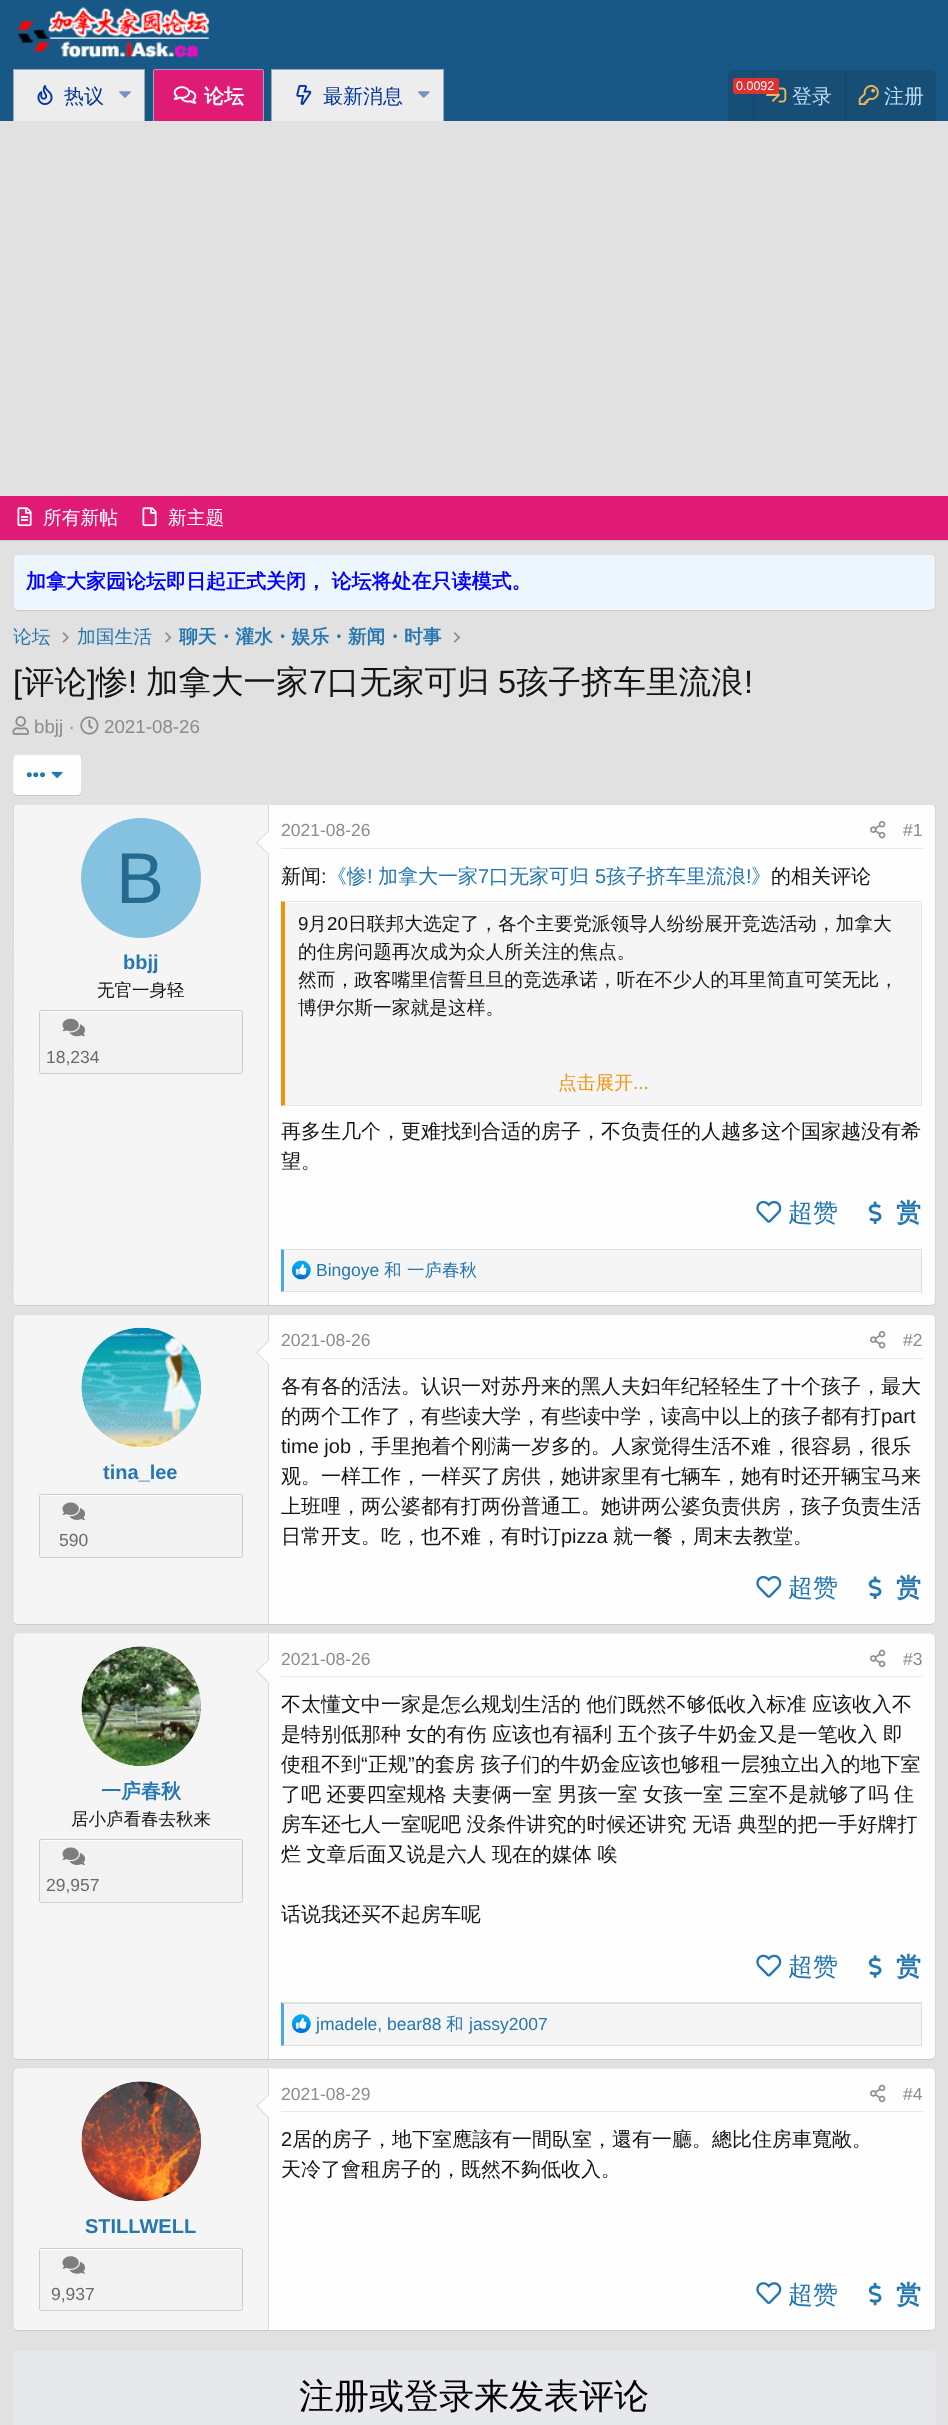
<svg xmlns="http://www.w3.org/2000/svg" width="948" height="2425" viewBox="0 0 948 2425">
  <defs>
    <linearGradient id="g1" gradientUnits="userSpaceOnUse" x1="603" y1="1011" x2="603" y2="1105"><stop offset="0" stop-color="#f5f5f5" stop-opacity="0"/><stop offset="0.8" stop-color="#f5f5f5"/></linearGradient>
  </defs>
  <rect width="100%" height="100%" fill="#e1e1e1"/>
  <path d="M0 0h948v69H0z" fill="#185886"/>
  <image x="18" y="7" width="192" height="51" href="img/1.png"/>
  <path d="M0 69h948v52H0z" fill="#185886"/>
  <path d="M14 70h130v51H14z" fill="#ededed"/>
  <path d="M13 69h132v1H13z" fill="#9da6bd"/>
  <path d="M144 69h1v52H144z" fill="#9da6bd"/>
  <path d="M13 69h1v52H13z" fill="#9da6bd"/>
  <image x="37" y="85" width="16" height="20" href="img/2.png"/>
  <image x="119" y="91" width="12" height="7" href="img/3.png"/>
  <path d="M155.5 69H261.5C263 69 264 70 264 71.5V121H153V71.5C153 70 154 69 155.5 69Z" fill="#df1b75"/>
  <path d="M154 69h109v1H154z" fill="#9da6bd"/>
  <path d="M263 70h1v51H263z" fill="#9da6bd"/>
  <path d="M153 70h1v51H153z" fill="#9da6bd"/>
  <image x="173" y="86" width="24" height="18" href="img/4.png"/>
  <path d="M272 70h171v51H272z" fill="#ededed"/>
  <path d="M271 69h173v1H271z" fill="#9da6bd"/>
  <path d="M443 69h1v52H443z" fill="#9da6bd"/>
  <path d="M271 69h1v52H271z" fill="#9da6bd"/>
  <image x="296" y="85" width="16" height="20" href="img/5.png"/>
  <image x="418" y="91" width="12" height="7" href="img/6.png"/>
  <path d="M733 70H931C934 70 936 72 936 75V121H728V75C728 72 730 70 733 70Z" fill="#174e75"/>
  <path d="M753 70h1v51H753z" fill="#174566"/>
  <image x="766" y="87" width="21" height="16" href="img/7.png"/>
  <rect x="733" y="78" width="46" height="16" rx="2.5" fill="#e03030"/>
  <path d="M845 70h1v51H845z" fill="#174566"/>
  <image x="858" y="85" width="21" height="20" href="img/8.png"/>
  <path d="M0 496h948v44H0z" fill="#df1b75"/>
  <path d="M0 540h948v1H0z" fill="#cbcbcb"/>
  <image x="17" y="507" width="15" height="20" href="img/9.png"/>
  <image x="142" y="507" width="15" height="20" href="img/10.png"/>
  <rect x="13" y="554" width="923" height="57" rx="5" fill="#edf6fd"/>
  <path d="M14.5 555.5L17.5 554.5H931L934.5 555.5" fill="none" stroke="#dfdfdf" stroke-width="1.2"/>
  <path d="M934.5 555.5C935 556.5 935.5 557.5 935.5 559V606C935.5 607.5 935 608.5 934.5 609.5" fill="none" stroke="#d8d8d8" stroke-width="1.2"/>
  <path d="M934.5 609.5L931 610.5H17.5L14.5 609.5" fill="none" stroke="#cbcbcb" stroke-width="1.2"/>
  <path d="M14.5 609.5C13.5 608.5 13 607.5 13 606V559C13 557.5 13.5 556.5 14.5 555.5" fill="none" stroke="#d8d8d8" stroke-width="1.2"/>
  <image x="62" y="632" width="7" height="11" href="img/11.png"/>
  <image x="165" y="632" width="7" height="11" href="img/12.png"/>
  <image x="453" y="632" width="7" height="11" href="img/13.png"/>
  <image x="12" y="716" width="17" height="19" href="img/14.png"/>
  <image x="80" y="716" width="19" height="19" href="img/15.png"/>
  <rect x="13" y="754" width="70" height="42" rx="5" fill="#fefefe"/>
  <path d="M80.5 755.5C81.5 756.5 82 757.5 82 759V791C82 792.5 81.5 793.5 80.5 794.5C80 795 78.5 795.5 77.5 795.5H17.5C16.5 795.5 15 795 14.5 794.5" fill="none" stroke="#cbcbcb" stroke-width="1.2"/>
  <path d="M14.5 794.5C13.5 793.5 13 792.5 13 791V759C13 757.5 13.5 756.5 14.5 755.5C15 755 16.5 754.5 17.5 754.5H77.5C78.5 754.5 80 755 80.5 755.5" fill="none" stroke="#e5e5e5" stroke-width="1.2"/>
  <image x="51" y="771" width="12" height="7" href="img/16.png"/>
  <rect x="13" y="804" width="923" height="502" rx="5" fill="#fefefe"/>
  <path d="M14.5 805.5L17.5 804.5H931L934.5 805.5" fill="none" stroke="#dfdfdf" stroke-width="1.2"/>
  <path d="M934.5 805.5L935.5 807.5V973V1301L934.5 1304.5" fill="none" stroke="#d8d8d8" stroke-width="1.2"/>
  <path d="M934.5 1304.5L931 1305.5H17.5L14.5 1304.5" fill="none" stroke="#cbcbcb" stroke-width="1.2"/>
  <path d="M14.5 1304.5L13 1301L13.5 807.5L14.5 805.5" fill="none" stroke="#d8d8d8" stroke-width="1.2"/>
  <path d="M18 805H269V1305H18C16 1305 14 1303 14 1301V809C14 807 16 805 18 805Z" fill="#f5f5f5"/>
  <path d="M268 805h1v500H268z" fill="#d8d8d8"/>
  <path d="M269 830V855L256 842.5Z" fill="#d8d8d8"/>
  <path d="M269 831V854L257.5 842.5Z" fill="#fefefe"/>
  <circle cx="141" cy="878" r="60" fill="#85c2e0"/>
  <rect x="39" y="1010" width="204" height="64" rx="2.5" fill="#f2f2f2"/>
  <path d="M41 1012H240C241 1012 241 1013 241 1014C241 1013 241 1011 240 1011H41C40 1011 40 1013 40 1014Z" fill="#fff"/>
  <rect x="39.5" y="1010.5" width="203" height="63" rx="2" fill="none" stroke="#ccc"/>
  <image x="62" y="1018" width="23" height="19" href="img/17.png"/>
  <path d="M281 848h642v1H281z" fill="#e7e7e7"/>
  <image x="870" y="821" width="16" height="18" href="img/18.png"/>
  <path d="M285 903h636v183H285z" fill="#f5f5f5"/>
  <path d="M281 901H922L921 902H285Z" fill="#e7e7e7"/>
  <path d="M921 901h1v205H921z" fill="#e7e7e7"/>
  <path d="M922 1106H281L285 1105H921Z" fill="#e7e7e7"/>
  <path d="M281 1106V901L285 902V1105Z" fill="#f2930d"/>
  <image x="756" y="1200" width="26" height="23" href="img/19.png"/>
  <image x="868" y="1201" width="14" height="24" href="img/20.png"/>
  <path d="M284 1250h637v41H284z" fill="#f5f5f5"/>
  <path d="M281 1249H922L921 1250H284Z" fill="#dfdfdf"/>
  <path d="M921 1249h1v44H921z" fill="#dfdfdf"/>
  <path d="M922 1292H281L284 1291H921Z" fill="#dfdfdf"/>
  <path d="M281 1292V1249L284 1250V1291Z" fill="#47a7eb"/>
  <image x="292" y="1260" width="19" height="20" href="img/21.png"/>
  <rect x="13" y="1314" width="923" height="311" rx="5" fill="#fefefe"/>
  <path d="M14.5 1315.5L17.5 1314.5H931L934.5 1315.5" fill="none" stroke="#dfdfdf" stroke-width="1.2"/>
  <path d="M934.5 1315.5C935 1316.5 935.5 1317.5 935.5 1319V1620C935.5 1621 935 1622.5 934.5 1623" fill="none" stroke="#d8d8d8" stroke-width="1.2"/>
  <path d="M934.5 1623L931 1624.5H17.5L14.5 1623" fill="none" stroke="#cbcbcb" stroke-width="1.2"/>
  <path d="M14.5 1623C13.5 1622.5 13 1621 13 1620V1319C13 1317.5 13.5 1316.5 14.5 1315.5" fill="none" stroke="#d8d8d8" stroke-width="1.2"/>
  <path d="M18 1315H269V1624H18C16 1624 14 1622 14 1620V1319C14 1317 16 1315 18 1315Z" fill="#f5f5f5"/>
  <path d="M268 1315h1v309H268z" fill="#d8d8d8"/>
  <circle cx="141" cy="1388" r="60" fill="#fefefe"/>
  <image x="81" y="1327" width="120" height="121" href="img/22.png"/>
  <path d="M269 1340V1365L256 1352.5Z" fill="#d8d8d8"/>
  <path d="M269 1341V1364L257.5 1352.5Z" fill="#fefefe"/>
  <rect x="39" y="1494" width="204" height="64" rx="2.5" fill="#f2f2f2"/>
  <path d="M41 1496H240C241 1496 241 1497 241 1498C241 1497 241 1495 240 1495H41C40 1495 40 1497 40 1498Z" fill="#fff"/>
  <rect x="39.5" y="1494.5" width="203" height="63" rx="2" fill="none" stroke="#ccc"/>
  <image x="62" y="1502" width="23" height="18" href="img/23.png"/>
  <path d="M281 1358h642v1H281z" fill="#e7e7e7"/>
  <image x="870" y="1331" width="16" height="18" href="img/18.png"/>
  <image x="756" y="1575" width="26" height="23" href="img/19.png"/>
  <image x="868" y="1576" width="14" height="24" href="img/20.png"/>
  <rect x="13" y="1633" width="923" height="427" rx="5" fill="#fefefe"/>
  <path d="M14.5 1634.5L17.5 1633H931L934.5 1634.5" fill="none" stroke="#dfdfdf" stroke-width="1.2"/>
  <path d="M934.5 1634.5L935.5 1637.5V2055L934.5 2058" fill="none" stroke="#d8d8d8" stroke-width="1.2"/>
  <path d="M934.5 2058L931 2059.5H17.5L14.5 2058" fill="none" stroke="#cbcbcb" stroke-width="1.2"/>
  <path d="M14.5 2058L13 2055V1637.5L14.5 1634.5" fill="none" stroke="#d8d8d8" stroke-width="1.2"/>
  <path d="M18 1634H269V2059H18C16 2059 14 2057 14 2055V1638C14 1636 16 1634 18 1634Z" fill="#f5f5f5"/>
  <path d="M268 1634h1v425H268z" fill="#d8d8d8"/>
  <circle cx="141" cy="1706" r="60" fill="#fefefe"/>
  <image x="81" y="1646" width="120" height="120" href="img/24.png"/>
  <path d="M269 1659V1684L256 1671Z" fill="#d8d8d8"/>
  <path d="M269 1660V1682.5L257.5 1671Z" fill="#fefefe"/>
  <rect x="39" y="1839" width="204" height="64" rx="2.5" fill="#f2f2f2"/>
  <path d="M41 1841H240L241 1842C241 1841 241 1840 240 1840H40V1842Z" fill="#fff"/>
  <rect x="39.5" y="1839.5" width="203" height="63" rx="2" fill="none" stroke="#ccc"/>
  <image x="62" y="1847" width="23" height="18" href="img/23.png"/>
  <path d="M281 1676h642v1H281z" fill="#e7e7e7"/>
  <image x="870" y="1649" width="16" height="19" href="img/25.png"/>
  <image x="756" y="1954" width="26" height="23" href="img/26.png"/>
  <image x="868" y="1955" width="14" height="23" href="img/27.png"/>
  <path d="M284 2004h637v41H284z" fill="#f5f5f5"/>
  <path d="M281 2002H922L921 2004H284Z" fill="#dfdfdf"/>
  <path d="M921 2003h1v43H921z" fill="#dfdfdf"/>
  <path d="M922 2046H281L284 2045H921Z" fill="#dfdfdf"/>
  <path d="M281 2046V2002L284 2004V2045Z" fill="#47a7eb"/>
  <image x="292" y="2014" width="19" height="19" href="img/28.png"/>
  <rect x="13" y="2068" width="923" height="263" rx="5" fill="#fefefe"/>
  <path d="M14.5 2069.5L17.5 2068H931L934.5 2069.5" fill="none" stroke="#dfdfdf" stroke-width="1.2"/>
  <path d="M934.5 2069.5C935 2070 935.5 2071.5 935.5 2072.5V2326C935.5 2327.5 935 2328.5 934.5 2329.5" fill="none" stroke="#d8d8d8" stroke-width="1.2"/>
  <path d="M934.5 2329.5L931 2330.5H17.5L14.5 2329.5" fill="none" stroke="#cbcbcb" stroke-width="1.2"/>
  <path d="M14.5 2329.5C13.5 2328.5 13 2327.5 13 2326V2072.5C13 2071.5 13.5 2070 14.5 2069.5" fill="none" stroke="#d8d8d8" stroke-width="1.2"/>
  <path d="M18 2069H269V2330H18C16 2330 14 2328 14 2326V2073C14 2071 16 2069 18 2069Z" fill="#f5f5f5"/>
  <path d="M268 2069h1v261H268z" fill="#d8d8d8"/>
  <circle cx="141" cy="2141" r="60" fill="#fefefe"/>
  <image x="81" y="2081" width="120" height="120" href="img/29.png"/>
  <path d="M269 2094V2119L256 2106Z" fill="#d8d8d8"/>
  <path d="M269 2095V2117.5L257.5 2106Z" fill="#fefefe"/>
  <rect x="39" y="2248" width="204" height="63" rx="2.5" fill="#f2f2f2"/>
  <path d="M41 2250H240L241 2251C241 2250 241 2249 240 2249H40V2251Z" fill="#fff"/>
  <rect x="39.5" y="2248.5" width="203" height="62" rx="2" fill="none" stroke="#ccc"/>
  <image x="62" y="2256" width="23" height="18" href="img/30.png"/>
  <path d="M281 2111h642v1H281z" fill="#e7e7e7"/>
  <image x="870" y="2084" width="16" height="19" href="img/25.png"/>
  <image x="756" y="2282" width="26" height="22" href="img/31.png"/>
  <image x="868" y="2282" width="14" height="24" href="img/32.png"/>
  <rect x="13" y="2351" width="923" height="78" rx="4" fill="#e6e8eb"/>
  <text x="64" y="103" font-family="WenQuanYi Zen Hei" font-size="20" font-weight="500" fill="#039">热议</text>
  <text x="204" y="103" font-family="WenQuanYi Zen Hei" font-size="20" font-weight="bold" fill="#fff">论坛</text>
  <text x="323" y="103" font-family="WenQuanYi Zen Hei" font-size="20" font-weight="500" fill="#039">最新消息</text>
  <text x="736" y="90" font-family="Liberation Sans" font-size="12.5" fill="#fff">0.0092</text>
  <g font-family="WenQuanYi Zen Hei" font-size="20" font-weight="500" fill="#bcdef5">
    <text x="792" y="103">登录</text>
    <text x="884" y="103">注册</text>
  </g>
  <g font-family="WenQuanYi Zen Hei" font-size="18.75" font-weight="500" fill="#fff">
    <text x="43" y="524">所有新帖</text>
    <text x="168" y="524">新主题</text>
  </g>
  <text x="26" y="588" word-spacing="-0.5" font-family="WenQuanYi Zen Hei" font-size="20" font-weight="bold" fill="#00f">加拿大家园论坛即日起正式关闭， 论坛将处在只读模式。</text>
  <g font-family="WenQuanYi Zen Hei" font-size="18.75" font-weight="500" fill="#2577b1">
    <text x="13" y="643">论坛</text>
    <text x="77" y="643">加国生活</text>
  </g>
  <text x="179" y="643" font-family="WenQuanYi Zen Hei" font-size="18.75" font-weight="bold" fill="#2577b1">聊天・灌水・娱乐・新闻・时事</text>
  <text x="13" y="693" font-family="Liberation Sans" font-size="32.5" fill="#141414">[</text>
  <text x="22" y="693" font-family="WenQuanYi Zen Hei" font-size="32.5" font-weight="500" fill="#141414">评论</text>
  <text x="87" y="693" font-family="Liberation Sans" font-size="32.5" fill="#141414">]</text>
  <text x="96" y="693" font-family="WenQuanYi Zen Hei" font-size="32.5" font-weight="500" fill="#141414">惨</text>
  <text x="128" y="693" font-family="Liberation Sans" font-size="32.5" fill="#141414">!</text>
  <text x="146" y="693" font-family="WenQuanYi Zen Hei" font-size="32.5" font-weight="500" fill="#141414">加拿大一家</text>
  <text x="309" y="693" font-family="Liberation Sans" font-size="32.5" fill="#141414">7</text>
  <text x="327" y="693" font-family="WenQuanYi Zen Hei" font-size="32.5" font-weight="500" fill="#141414">口无家可归</text>
  <text x="498" y="693" font-family="Liberation Sans" font-size="32.5" fill="#141414">5</text>
  <text x="516" y="693" font-family="WenQuanYi Zen Hei" font-size="32.5" font-weight="500" fill="#141414">孩子挤车里流浪</text>
  <text x="744" y="693" font-family="Liberation Sans" font-size="32.5" fill="#141414">!</text>
  <g font-family="Liberation Sans" font-size="18.75" fill="#8c8c8c">
    <text x="34" y="733">bbjj ·</text>
    <text x="104" y="733">2021-08-26</text>
  </g>
  <text x="26" y="781" font-family="Liberation Sans" font-size="18.75" fill="#2577b1">•••</text>
  <text x="116" y="903" font-family="Liberation Sans" font-size="72" fill="#246b8f">B</text>
  <text x="123" y="969" font-family="Liberation Sans" font-size="20" font-weight="bold" fill="#2577b1">bbjj</text>
  <text x="97" y="996" font-family="WenQuanYi Zen Hei" font-size="17.5" font-weight="500" fill="#141414">无官一身轻</text>
  <text x="46" y="1063" font-family="Liberation Sans" font-size="17.5" fill="#6a6a6a">18,234</text>
  <g font-family="Liberation Sans" font-size="17.5" fill="#8c8c8c">
    <text x="281" y="836">2021-08-26</text>
    <text x="903" y="836">#1</text>
  </g>
  <text x="281" y="883" font-family="WenQuanYi Zen Hei" font-size="20" font-weight="500" fill="#141414">新闻</text>
  <text x="321" y="883" font-family="Liberation Sans" font-size="20" fill="#141414">:</text>
  <text x="327" y="883" font-family="WenQuanYi Zen Hei" font-size="20" font-weight="500" fill="#2577b1">《惨</text>
  <text x="367" y="883" font-family="Liberation Sans" font-size="20" fill="#2577b1">!</text>
  <text x="378" y="883" font-family="WenQuanYi Zen Hei" font-size="20" font-weight="500" fill="#2577b1">加拿大一家</text>
  <text x="478" y="883" font-family="Liberation Sans" font-size="20" fill="#2577b1">7</text>
  <text x="489" y="883" font-family="WenQuanYi Zen Hei" font-size="20" font-weight="500" fill="#2577b1">口无家可归</text>
  <text x="595" y="883" font-family="Liberation Sans" font-size="20" fill="#2577b1">5</text>
  <text x="606" y="883" font-family="WenQuanYi Zen Hei" font-size="20" font-weight="500" fill="#2577b1">孩子挤车里流浪</text>
  <text x="746" y="883" font-family="Liberation Sans" font-size="20" fill="#2577b1">!</text>
  <text x="751" y="883" font-family="WenQuanYi Zen Hei" font-size="20" font-weight="500" fill="#2577b1">》</text>
  <text x="771" y="883" font-family="WenQuanYi Zen Hei" font-size="20" font-weight="500" fill="#141414">的相关评论</text>
  <text x="298" y="930" font-family="Liberation Sans" font-size="18.75" fill="#141414">9</text>
  <text x="308" y="930" font-family="WenQuanYi Zen Hei" font-size="18.75" font-weight="500" fill="#141414">月</text>
  <text x="327" y="930" font-family="Liberation Sans" font-size="18.75" fill="#141414">20</text>
  <g font-family="WenQuanYi Zen Hei" font-size="18.75" font-weight="500" fill="#141414">
    <text x="348" y="930">日联邦大选定了，各个主要党派领导人纷纷展开竞选活动，加拿大</text>
    <text x="298" y="958">的住房问题再次成为众人所关注的焦点。</text>
    <text x="298" y="986">然而，政客嘴里信誓旦旦的竞选承诺，听在不少人的耳里简直可笑无比，</text>
    <text x="298" y="1014">博伊尔斯一家就是这样。</text>
  </g>
  <path d="M285 1013h636v92H285z" fill="url(#g1)"/>
  <text x="558" y="1089" font-family="WenQuanYi Zen Hei" font-size="18.75" font-weight="500" fill="#f2930d">点击展开</text>
  <text x="633" y="1089" font-family="Liberation Sans" font-size="18.75" fill="#f2930d">...</text>
  <g font-family="WenQuanYi Zen Hei" font-size="20" font-weight="500" fill="#141414">
    <text x="281" y="1138">再多生几个，更难找到合适的房子，不负责任的人越多这个国家越没有希</text>
    <text x="281" y="1168">望。</text>
  </g>
  <text x="788" y="1221" font-family="WenQuanYi Zen Hei" font-size="25" font-weight="500" fill="#2577b1">超赞</text>
  <text x="896" y="1221" font-family="WenQuanYi Zen Hei" font-size="25" font-weight="bold" fill="#2577b1">赏</text>
  <text x="316" y="1276" font-family="Liberation Sans" font-size="17.5" fill="#2577b1">Bingoye</text>
  <g font-family="WenQuanYi Zen Hei" font-size="17.5" font-weight="500" fill="#2577b1">
    <text x="384" y="1276">和</text>
    <text x="407" y="1276">一庐春秋</text>
  </g>
  <text x="103" y="1479" font-family="Liberation Sans" font-size="20" font-weight="bold" fill="#2577b1">tina_lee</text>
  <text x="59" y="1546" font-family="Liberation Sans" font-size="17.5" fill="#6a6a6a">590</text>
  <g font-family="Liberation Sans" font-size="17.5" fill="#8c8c8c">
    <text x="281" y="1346">2021-08-26</text>
    <text x="903" y="1346">#2</text>
  </g>
  <g font-family="WenQuanYi Zen Hei" font-size="20" font-weight="500" fill="#141414">
    <text x="281" y="1393">各有各的活法。认识一对苏丹来的黑人夫妇年纪轻轻生了十个孩子，最大</text>
    <text x="281" y="1423">的两个工作了，有些读大学，有些读中学，读高中以上的孩子都有打</text>
  </g>
  <g font-family="Liberation Sans" font-size="20" fill="#141414">
    <text x="881" y="1423">part</text>
    <text x="281" y="1453">time job</text>
  </g>
  <g font-family="WenQuanYi Zen Hei" font-size="20" font-weight="500" fill="#141414">
    <text x="351" y="1453">，手里抱着个刚满一岁多的。人家觉得生活不难，很容易，很乐</text>
    <text x="281" y="1483">观。一样工作，一样买了房供，她讲家里有七辆车，她有时还开辆宝马来</text>
    <text x="281" y="1513">上班哩，两公婆都有打两份普通工。她讲两公婆负责供房，孩子负责生活</text>
    <text x="281" y="1543">日常开支。吃，也不难，有时订</text>
  </g>
  <text x="561" y="1543" font-family="Liberation Sans" font-size="20" fill="#141414">pizza</text>
  <text x="613" y="1543" font-family="WenQuanYi Zen Hei" font-size="20" font-weight="500" fill="#141414">就一餐，周末去教堂。</text>
  <text x="788" y="1596" font-family="WenQuanYi Zen Hei" font-size="25" font-weight="500" fill="#2577b1">超赞</text>
  <text x="896" y="1596" font-family="WenQuanYi Zen Hei" font-size="25" font-weight="bold" fill="#2577b1">赏</text>
  <text x="101" y="1798" font-family="WenQuanYi Zen Hei" font-size="20" font-weight="bold" fill="#2577b1">一庐春秋</text>
  <text x="71" y="1825" font-family="WenQuanYi Zen Hei" font-size="17.5" font-weight="500" fill="#141414">居小庐看春去秋来</text>
  <text x="46" y="1891" font-family="Liberation Sans" font-size="17.5" fill="#6a6a6a">29,957</text>
  <g font-family="Liberation Sans" font-size="17.5" fill="#8c8c8c">
    <text x="281" y="1665">2021-08-26</text>
    <text x="903" y="1665">#3</text>
  </g>
  <g font-family="WenQuanYi Zen Hei" font-size="20" font-weight="500" fill="#141414">
    <text x="281" y="1711" word-spacing="-0.5">不太懂文中一家是怎么规划生活的 他们既然不够低收入标准 应该收入不</text>
    <text x="281" y="1741" word-spacing="-0.5">是特别低那种 女的有伤 应该也有福利 五个孩子牛奶金又是一笔收入 即</text>
    <text x="281" y="1771">使租不到</text>
  </g>
  <text x="361" y="1771" font-family="Liberation Sans" font-size="20" fill="#141414">“</text>
  <text x="368" y="1771" font-family="WenQuanYi Zen Hei" font-size="20" font-weight="500" fill="#141414">正规</text>
  <text x="408" y="1771" font-family="Liberation Sans" font-size="20" fill="#141414">”</text>
  <g font-family="WenQuanYi Zen Hei" font-size="20" font-weight="500" fill="#141414">
    <text x="415" y="1771" word-spacing="-0.5">的套房 孩子们的牛奶金应该也够租一层独立出入的地下室</text>
    <text x="281" y="1801" word-spacing="-0.5">了吧 还要四室规格 夫妻俩一室 男孩一室 女孩一室 三室不是就够了吗 住</text>
    <text x="281" y="1831" word-spacing="-0.5">房车还七人一室呢吧 没条件讲究的时候还讲究 无语 典型的把一手好牌打</text>
    <text x="281" y="1861" word-spacing="-0.5">烂 文章后面又说是六人 现在的媒体 唉</text>
    <text x="281" y="1921">话说我还买不起房车呢</text>
  </g>
  <text x="788" y="1975" font-family="WenQuanYi Zen Hei" font-size="25" font-weight="500" fill="#2577b1">超赞</text>
  <text x="896" y="1975" font-family="WenQuanYi Zen Hei" font-size="25" font-weight="bold" fill="#2577b1">赏</text>
  <text x="316" y="2030" font-family="Liberation Sans" font-size="17.5" fill="#2577b1">jmadele, bear88</text>
  <text x="446" y="2030" font-family="WenQuanYi Zen Hei" font-size="17.5" font-weight="500" fill="#2577b1">和</text>
  <text x="469" y="2030" font-family="Liberation Sans" font-size="17.5" fill="#2577b1">jassy2007</text>
  <text x="85" y="2233" font-family="Liberation Sans" font-size="20" font-weight="bold" fill="#2577b1">STILLWELL</text>
  <text x="51" y="2300" font-family="Liberation Sans" font-size="17.5" fill="#6a6a6a">9,937</text>
  <g font-family="Liberation Sans" font-size="17.5" fill="#8c8c8c">
    <text x="281" y="2100">2021-08-29</text>
    <text x="903" y="2100">#4</text>
  </g>
  <text x="281" y="2146" font-family="Liberation Sans" font-size="20" fill="#141414">2</text>
  <g font-family="WenQuanYi Zen Hei" font-size="20" font-weight="500" fill="#141414">
    <text x="292" y="2146">居的房子，地下室應該有一間臥室，還有一廳。總比住房車寬敞。</text>
    <text x="281" y="2176">天冷了會租房子的，既然不夠低收入。</text>
  </g>
  <text x="788" y="2303" font-family="WenQuanYi Zen Hei" font-size="25" font-weight="500" fill="#2577b1">超赞</text>
  <text x="896" y="2303" font-family="WenQuanYi Zen Hei" font-size="25" font-weight="bold" fill="#2577b1">赏</text>
  <text x="299" y="2408" font-family="WenQuanYi Zen Hei" font-size="35" font-weight="500" fill="#000">注册或登录来发表评论</text>
</svg>
